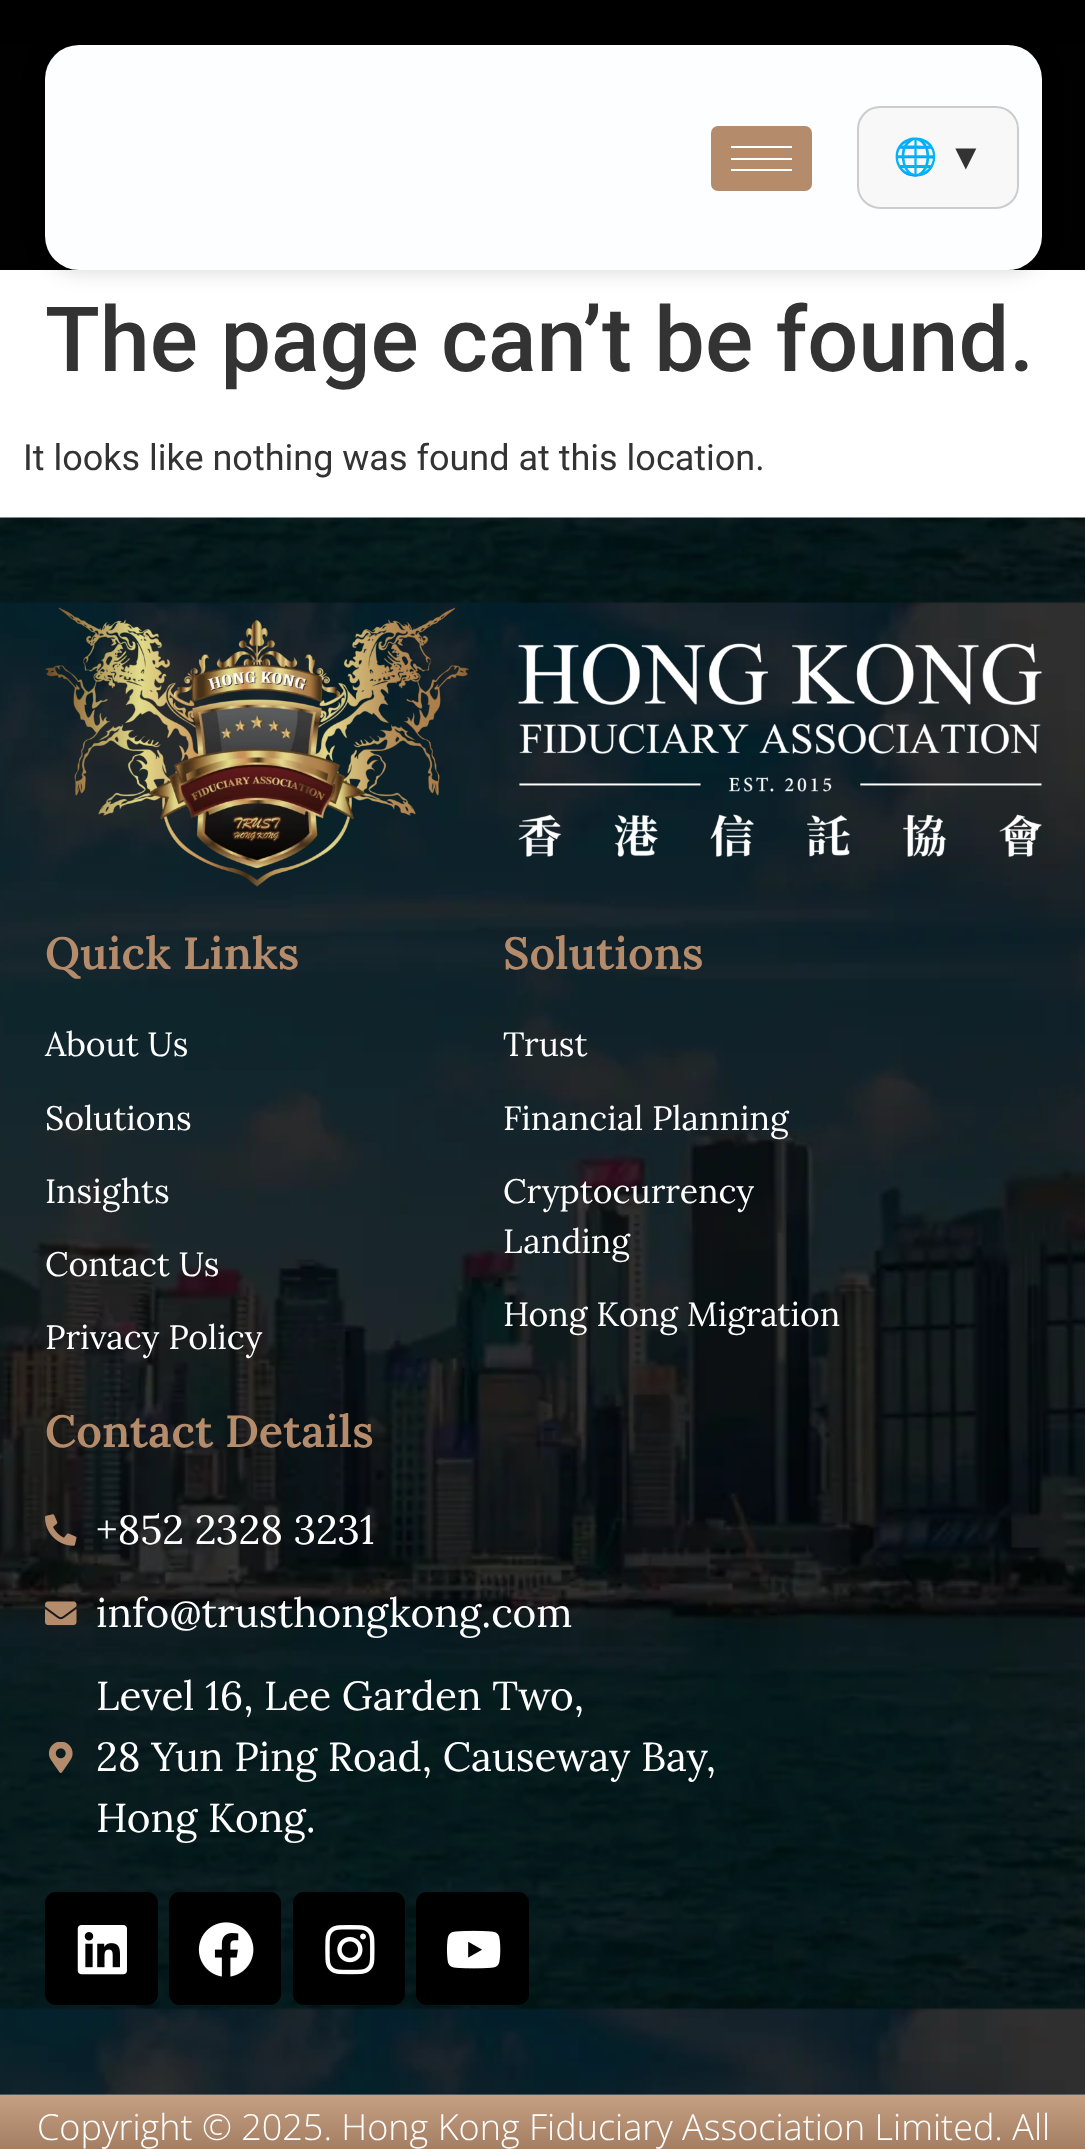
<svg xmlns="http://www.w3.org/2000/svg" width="1085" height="2149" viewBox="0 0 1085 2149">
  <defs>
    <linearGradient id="g1" gradientUnits="userSpaceOnUse" x1="543" y1="2095" x2="543" y2="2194"><stop offset="0" stop-color="#c5a083"/><stop offset="1" stop-color="#8a6247"/></linearGradient>
  </defs>
  <rect width="100%" height="100%" fill="#fff"/>
  <path d="M0 0h1085v45H0z" fill="#000"/>
  <path d="M0 45h1085v225H0z" fill="#020101"/>
  <rect x="45" y="45" width="997" height="225" rx="34" fill="#0000002b" filter="blur(11px)"/>
  <rect x="45" y="45" width="997" height="225" rx="34" fill="#fdfeff"/>
  <rect x="712" y="127" width="99" height="63" rx="6" fill="#b48b6b" stroke="#b48b6b" stroke-width="2"/>
  <path d="M731 146h61v2H731z" fill="#fff"/>
  <path d="M731 158h61v2H731z" fill="#fff"/>
  <path d="M731 169h61v2H731z" fill="#fff"/>
  <rect x="858" y="107" width="160" height="101" rx="22" fill="#f8f8f8" stroke="#ccc" stroke-width="2"/>
  <image x="0" y="517" width="1085" height="1578" href="img/1.png"/>
  <image x="45" y="607" width="997" height="280" href="img/2.png"/>
  <image x="45" y="1514" width="32" height="32" href="img/3.png"/>
  <image x="45" y="1601" width="32" height="25" href="img/4.png"/>
  <image x="48" y="1742" width="25" height="31" href="img/5.png"/>
  <rect x="45" y="1892" width="113" height="113" rx="11" fill="#000"/>
  <image x="77" y="1925" width="50" height="50" href="img/6.png"/>
  <rect x="169" y="1892" width="112" height="113" rx="11" fill="#000"/>
  <image x="198" y="1922" width="56" height="55" href="img/7.png"/>
  <rect x="293" y="1892" width="112" height="113" rx="11" fill="#000"/>
  <image x="325" y="1925" width="50" height="50" href="img/8.png"/>
  <rect x="416" y="1892" width="113" height="113" rx="11" fill="#000"/>
  <image x="446" y="1930" width="55" height="39" href="img/9.png"/>
  <path d="M0 2095h1085v54H0z" fill="url(#g1)"/>
  <text x="893" y="169" font-family="Noto Color Emoji" font-size="36" fill="#333">🌐</text>
  <text x="948" y="169" font-family="Liberation Sans" font-size="36" fill="#333">▼</text>
  <text x="45" y="371" font-family="Roboto" font-size="90" font-weight="500" fill="#333">The page can’t be found.</text>
  <text x="23" y="470" font-family="Roboto" font-size="36" fill="#333">It looks like nothing was found at this location.</text>
  <text x="45" y="969" font-family="Lora" font-size="45" font-weight="600" fill="#b48b6b">Quick Links</text>
  <g font-family="Lora" font-size="33.75" fill="#fff">
    <text x="45" y="1056">About Us</text>
    <text x="45" y="1130">Solutions</text>
    <text x="45" y="1203">Insights</text>
    <text x="45" y="1276">Contact Us</text>
    <text x="45" y="1349">Privacy Policy</text>
  </g>
  <text x="503" y="969" font-family="Lora" font-size="45" font-weight="600" fill="#b48b6b">Solutions</text>
  <g font-family="Lora" font-size="33.75" fill="#fff">
    <text x="503" y="1056">Trust</text>
    <text x="503" y="1130">Financial Planning</text>
    <text x="503" y="1203">Cryptocurrency</text>
    <text x="503" y="1253">Landing</text>
    <text x="503" y="1326">Hong Kong Migration</text>
  </g>
  <text x="45" y="1447" font-family="Lora" font-size="45" font-weight="600" fill="#b48b6b">Contact Details</text>
  <g font-family="Lora" font-size="40.5" fill="#fff">
    <text x="96" y="1544">+852 2328 3231</text>
    <text x="96" y="1627">info@trusthongkong.com</text>
    <text x="96" y="1710">Level 16, Lee Garden Two,</text>
    <text x="96" y="1771">28 Yun Ping Road, Causeway Bay,</text>
    <text x="96" y="1832">Hong Kong.</text>
  </g>
  <text x="37" y="2140" font-family="Open Sans" font-size="36" font-weight="300" fill="#fff">Copyright © 2025. Hong Kong Fiduciary Association Limited. All</text>
</svg>
